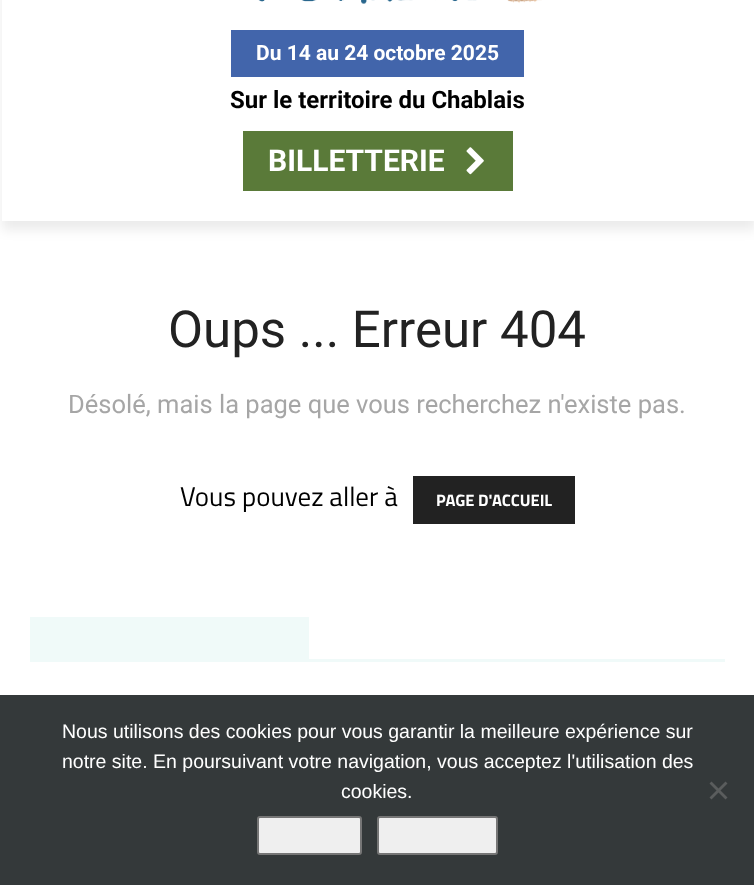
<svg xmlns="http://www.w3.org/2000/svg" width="754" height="885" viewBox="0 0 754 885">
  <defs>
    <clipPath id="clip1"><path d="M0 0H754V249H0ZM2-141H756V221H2Z" clip-rule="evenodd"/></clipPath>
  </defs>
  <rect width="100%" height="100%" fill="#fff"/>
  <image x="258" y="0" width="284" height="4" href="img/1.png"/>
  <path d="M231 30h293v47H231z" fill="#4265ab"/>
  <path d="M243 131h270v60H243z" fill="#5a7a39"/>
  <image x="466" y="147" width="18" height="28" href="img/2.png"/>
  <g clip-path="url(#clip1)">
    <path d="M2 -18h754v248H2z" fill="#00000014" filter="blur(6px)"/>
  </g>
  <path d="M413 476h162v48H413z" fill="#222"/>
  <path d="M30 659h695v3H30z" fill="#f0faf9"/>
  <path d="M30 617h279v42H30z" fill="#f0faf9"/>
  <path d="M0 695h754v190H0z" fill="#34393a"/>
  <path d="M725.5 781.5L727.5 783.5L711.5 799.5L709.5 797.5Z" fill="#5a5d5d"/>
  <path d="M709.5 783.5L711.5 781.5L727.5 797.5L725.5 799.5Z" fill="#5a5d5d"/>
  <rect x="258" y="817" width="103" height="37" rx="2" fill="#efefef" stroke="#767676" stroke-width="2"/>
  <rect x="378" y="817" width="119" height="37" rx="2" fill="#efefef" stroke="#767676" stroke-width="2"/>
  <text x="256" y="60" font-family="Roboto" font-size="21" font-weight="bold" fill="#fff">Du 14 au 24 octobre 2025</text>
  <text x="230" y="108" font-family="Roboto" font-size="24" font-weight="bold" fill="#000">Sur le territoire du Chablais</text>
  <text x="268" y="171" font-family="Roboto" font-size="30" font-weight="bold" fill="#fff">BILLETTERIE</text>
  <text x="168" y="347" font-family="Roboto" font-size="51" fill="#222">Oups ... Erreur 404</text>
  <text x="68" y="413" font-family="Roboto" font-size="25.5" fill="#a6a6a6">Désolé, mais la page que vous recherchez n'existe pas.</text>
  <text x="180" y="506" font-family="Titillium Web" font-size="27" fill="#000">Vous pouvez aller à</text>
  <text x="436" y="506" font-family="Titillium Web" font-size="16.5" font-weight="bold" fill="#fff">PAGE D'ACCUEIL</text>
  <g font-family="Liberation Sans" font-size="19.5" fill="#fff">
    <text x="62" y="738">Nous utilisons des cookies pour vous garantir la meilleure expérience sur</text>
    <text x="62" y="768">notre site. En poursuivant votre navigation, vous acceptez l'utilisation des</text>
    <text x="341" y="798">cookies.</text>
  </g>
</svg>
